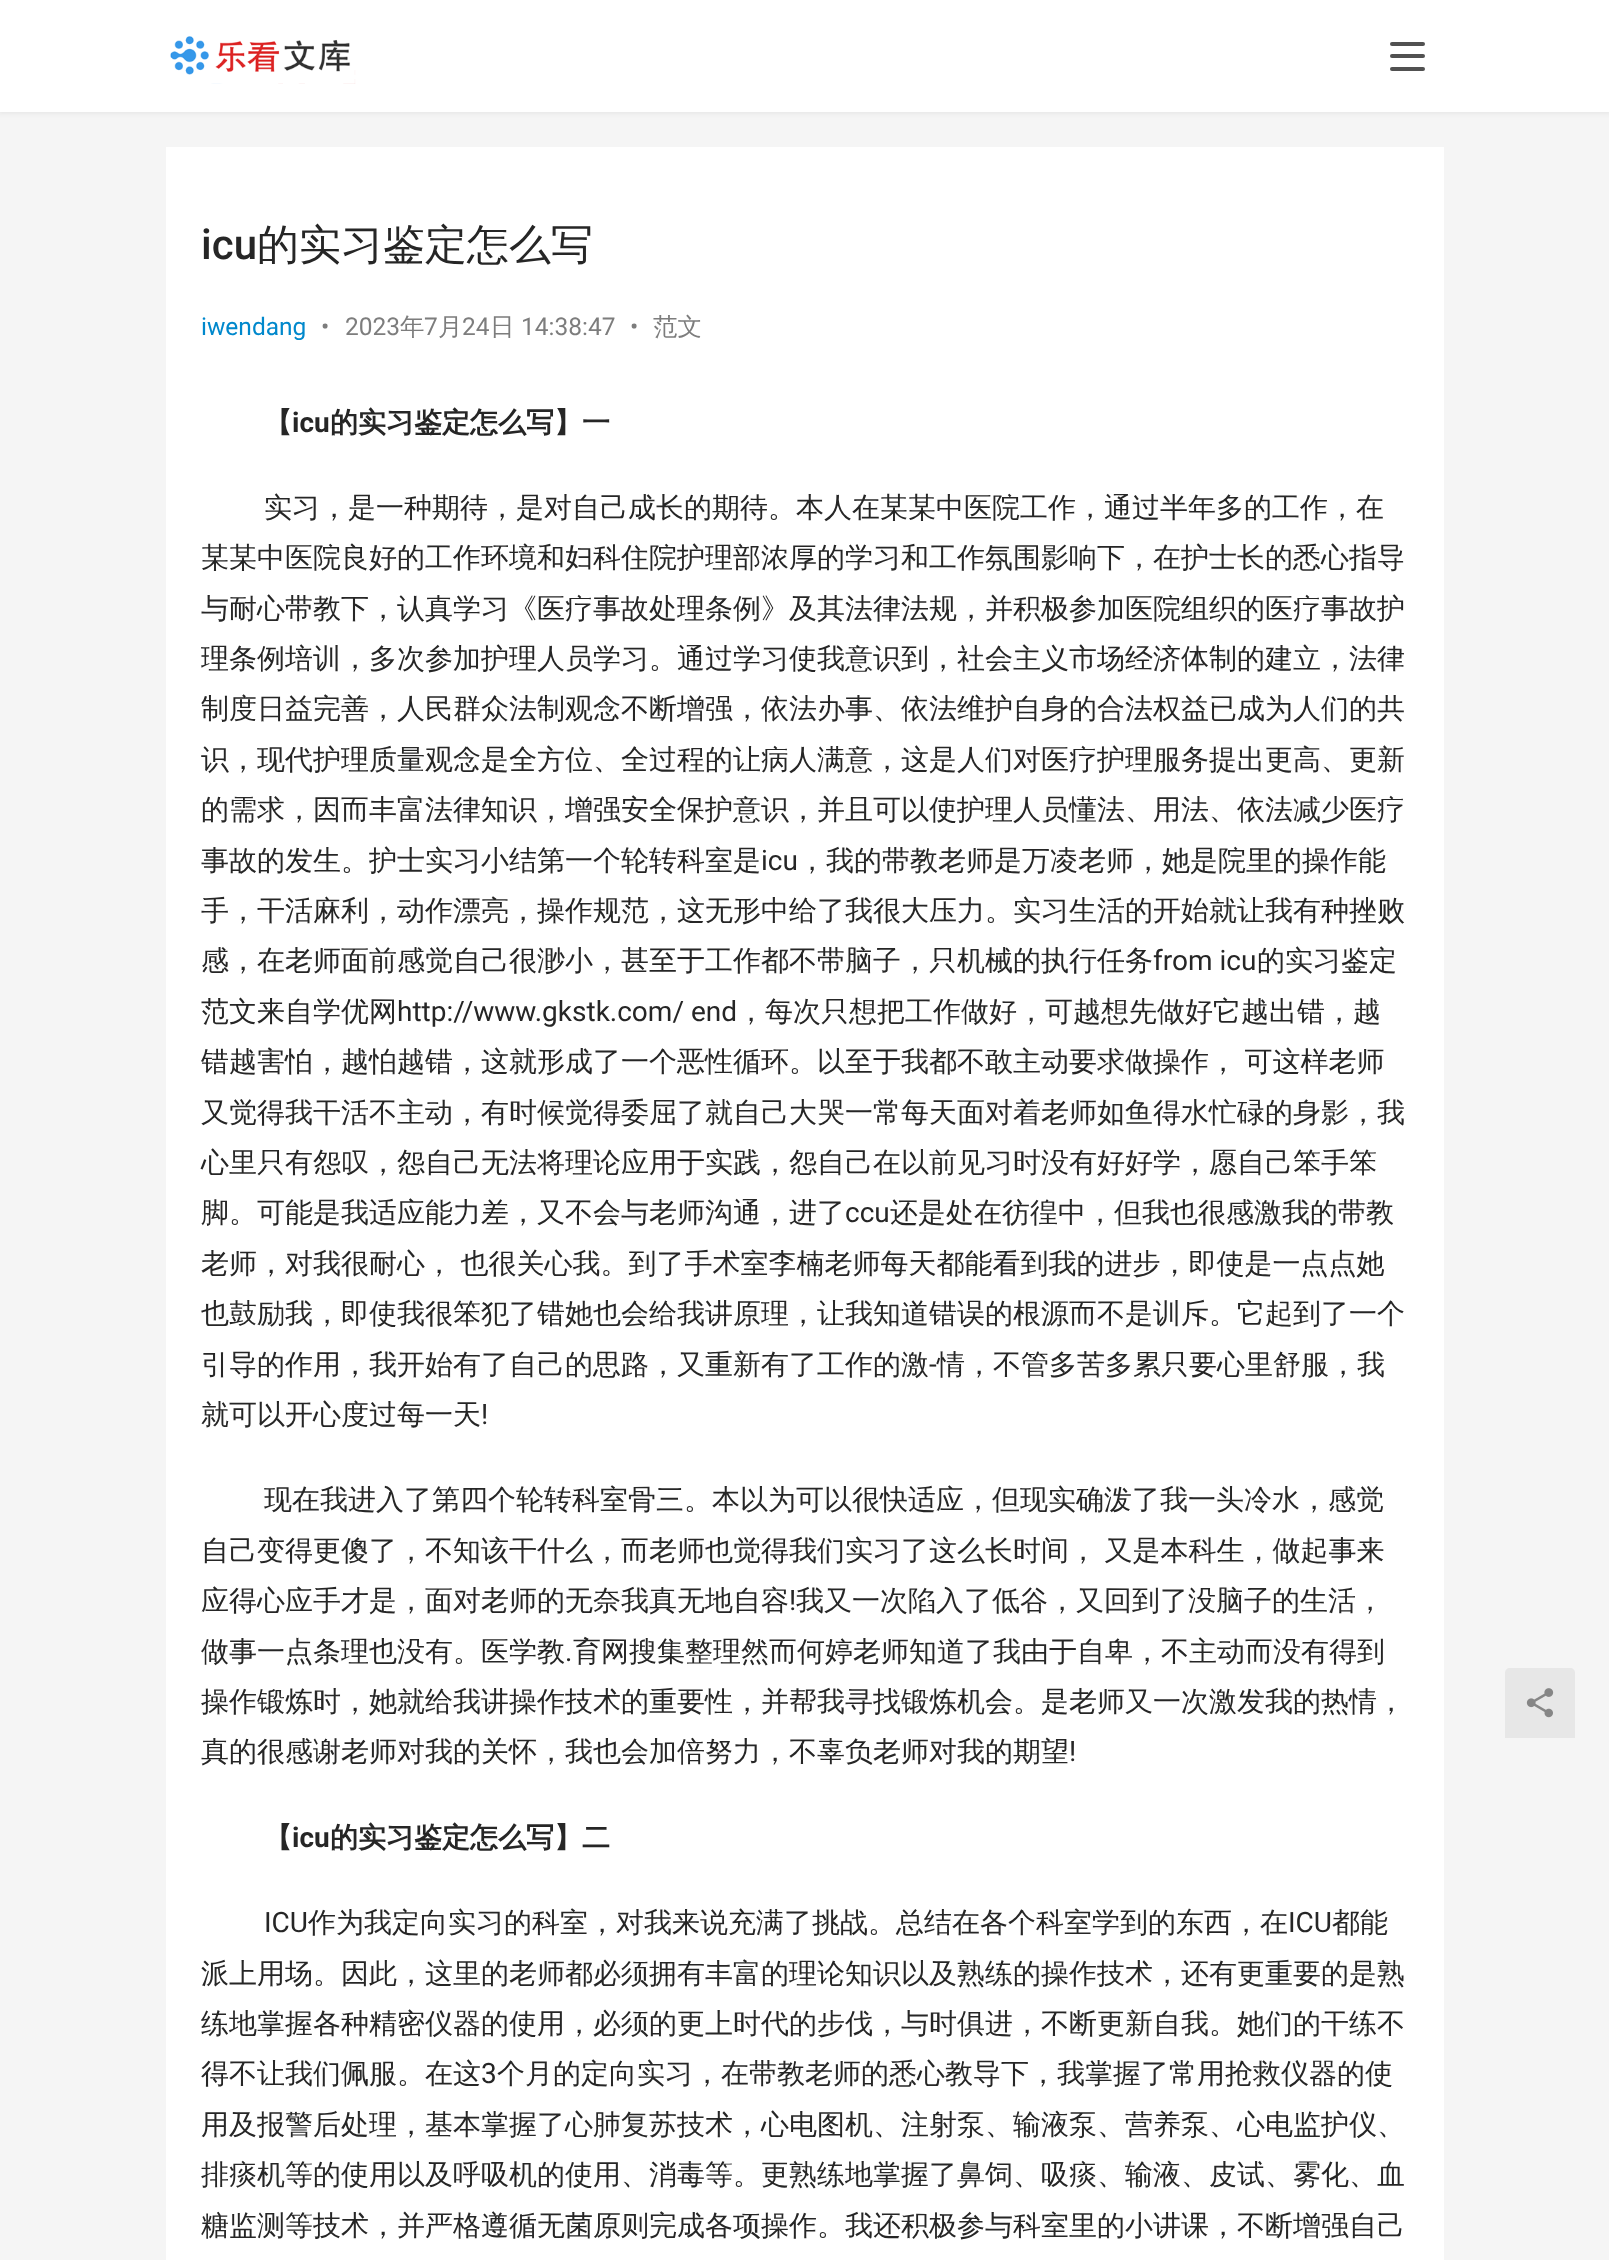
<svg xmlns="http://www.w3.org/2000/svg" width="1609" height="2260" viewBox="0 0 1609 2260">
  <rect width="100%" height="100%" fill="#f5f5f5"/>
  <path d="M-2 -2h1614v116H-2z" fill="#2626260f" filter="blur(2.5px)"/>
  <path d="M0 0h1609v112H0z" fill="#fff"/>
  <image x="170" y="36" width="186" height="48" href="img/1.png"/>
  <rect x="1390" y="42" width="35" height="4" rx="2" fill="#515151"/>
  <rect x="1390" y="54" width="35" height="4" rx="2" fill="#515151"/>
  <rect x="1390" y="67" width="35" height="4" rx="2" fill="#515151"/>
  <path d="M166 147h1278v2113H166z" fill="#fff"/>
  <path d="M1510 1668H1570C1573 1668 1575 1670 1575 1673V1738H1505V1673C1505 1670 1507 1668 1510 1668Z" fill="#e7e7e7"/>
  <image x="1526" y="1688" width="28" height="30" href="img/2.png"/>
  <text x="201" y="259" font-family="Roboto" font-size="42" font-weight="500" fill="#262626">icu</text>
  <text x="257" y="259" font-family="WenQuanYi Zen Hei" font-size="42" font-weight="500" fill="#262626">的实习鉴定怎么写</text>
  <text x="201" y="335" font-family="Roboto" font-size="24.5" fill="#08c">iwendang</text>
  <g font-family="Roboto" font-size="24.5" fill="#7d7d7d">
    <text x="321" y="335">•</text>
    <text x="345" y="335">2023</text>
  </g>
  <text x="400" y="335" font-family="WenQuanYi Zen Hei" font-size="24.5" font-weight="500" fill="#7d7d7d">年</text>
  <text x="424" y="335" font-family="Roboto" font-size="24.5" fill="#7d7d7d">7</text>
  <text x="438" y="335" font-family="WenQuanYi Zen Hei" font-size="24.5" font-weight="500" fill="#7d7d7d">月</text>
  <text x="462" y="335" font-family="Roboto" font-size="24.5" fill="#7d7d7d">24</text>
  <text x="490" y="335" font-family="WenQuanYi Zen Hei" font-size="24.5" font-weight="500" fill="#7d7d7d">日</text>
  <g font-family="Roboto" font-size="24.5" fill="#7d7d7d">
    <text x="521" y="335">14:38:47</text>
    <text x="630" y="335">•</text>
  </g>
  <text x="653" y="335" font-family="WenQuanYi Zen Hei" font-size="24.5" font-weight="500" fill="#7d7d7d">范文</text>
  <text x="264" y="432" font-family="WenQuanYi Zen Hei" font-size="28" font-weight="bold" fill="#262626">【</text>
  <text x="292" y="432" font-family="Roboto" font-size="28" font-weight="bold" fill="#262626">icu</text>
  <text x="330" y="432" font-family="WenQuanYi Zen Hei" font-size="28" font-weight="bold" fill="#262626">的实习鉴定怎么写】一</text>
  <g font-family="WenQuanYi Zen Hei" font-size="28" font-weight="500" fill="#262626">
    <text x="264" y="517">实习，是一种期待，是对自己成长的期待。本人在某某中医院工作，通过半年多的工作，在</text>
    <text x="201" y="567">某某中医院良好的工作环境和妇科住院护理部浓厚的学习和工作氛围影响下，在护士长的悉心指导</text>
    <text x="201" y="618">与耐心带教下，认真学习《医疗事故处理条例》及其法律法规，并积极参加医院组织的医疗事故护</text>
    <text x="201" y="668">理条例培训，多次参加护理人员学习。通过学习使我意识到，社会主义市场经济体制的建立，法律</text>
    <text x="201" y="718">制度日益完善，人民群众法制观念不断增强，依法办事、依法维护自身的合法权益已成为人们的共</text>
    <text x="201" y="769">识，现代护理质量观念是全方位、全过程的让病人满意，这是人们对医疗护理服务提出更高、更新</text>
    <text x="201" y="819">的需求，因而丰富法律知识，增强安全保护意识，并且可以使护理人员懂法、用法、依法减少医疗</text>
    <text x="201" y="870">事故的发生。护士实习小结第一个轮转科室是</text>
  </g>
  <text x="761" y="870" font-family="Roboto" font-size="28" fill="#262626">icu</text>
  <g font-family="WenQuanYi Zen Hei" font-size="28" font-weight="500" fill="#262626">
    <text x="798" y="870">，我的带教老师是万凌老师，她是院里的操作能</text>
    <text x="201" y="920">手，干活麻利，动作漂亮，操作规范，这无形中给了我很大压力。实习生活的开始就让我有种挫败</text>
    <text x="201" y="970">感，在老师面前感觉自己很渺小，甚至于工作都不带脑子，只机械的执行任务</text>
  </g>
  <text x="1153" y="970" font-family="Roboto" font-size="28" fill="#262626">from icu</text>
  <g font-family="WenQuanYi Zen Hei" font-size="28" font-weight="500" fill="#262626">
    <text x="1257" y="970">的实习鉴定</text>
    <text x="201" y="1021">范文来自学优网</text>
  </g>
  <text x="397" y="1021" font-family="Roboto" font-size="28" fill="#262626">http://www.gkstk.com/ end</text>
  <g font-family="WenQuanYi Zen Hei" font-size="28" font-weight="500" fill="#262626">
    <text x="737" y="1021">，每次只想把工作做好，可越想先做好它越出错，越</text>
    <text x="201" y="1071" word-spacing="-1">错越害怕，越怕越错，这就形成了一个恶性循环。以至于我都不敢主动要求做操作， 可这样老师</text>
    <text x="201" y="1122">又觉得我干活不主动，有时候觉得委屈了就自己大哭一常每天面对着老师如鱼得水忙碌的身影，我</text>
    <text x="201" y="1172">心里只有怨叹，怨自己无法将理论应用于实践，怨自己在以前见习时没有好好学，愿自己笨手笨</text>
    <text x="201" y="1222">脚。可能是我适应能力差，又不会与老师沟通，进了</text>
  </g>
  <text x="845" y="1222" font-family="Roboto" font-size="28" fill="#262626">ccu</text>
  <g font-family="WenQuanYi Zen Hei" font-size="28" font-weight="500" fill="#262626">
    <text x="890" y="1222">还是处在彷徨中，但我也很感激我的带教</text>
    <text x="201" y="1273" word-spacing="-1">老师，对我很耐心， 也很关心我。到了手术室李楠老师每天都能看到我的进步，即使是一点点她</text>
    <text x="201" y="1323">也鼓励我，即使我很笨犯了错她也会给我讲原理，让我知道错误的根源而不是训斥。它起到了一个</text>
    <text x="201" y="1374">引导的作用，我开始有了自己的思路，又重新有了工作的激</text>
  </g>
  <text x="929" y="1374" font-family="Roboto" font-size="28" fill="#262626">-</text>
  <g font-family="WenQuanYi Zen Hei" font-size="28" font-weight="500" fill="#262626">
    <text x="937" y="1374">情，不管多苦多累只要心里舒服，我</text>
    <text x="201" y="1424">就可以开心度过每一天</text>
  </g>
  <text x="481" y="1424" font-family="Roboto" font-size="28" fill="#262626">!</text>
  <g font-family="WenQuanYi Zen Hei" font-size="28" font-weight="500" fill="#262626">
    <text x="264" y="1509">现在我进入了第四个轮转科室骨三。本以为可以很快适应，但现实确泼了我一头冷水，感觉</text>
    <text x="201" y="1560" word-spacing="-1">自己变得更傻了，不知该干什么，而老师也觉得我们实习了这么长时间， 又是本科生，做起事来</text>
    <text x="201" y="1610">应得心应手才是，面对老师的无奈我真无地自容</text>
  </g>
  <text x="789" y="1610" font-family="Roboto" font-size="28" fill="#262626">!</text>
  <g font-family="WenQuanYi Zen Hei" font-size="28" font-weight="500" fill="#262626">
    <text x="796" y="1610">我又一次陷入了低谷，又回到了没脑子的生活，</text>
    <text x="201" y="1661">做事一点条理也没有。医学教</text>
  </g>
  <text x="565" y="1661" font-family="Roboto" font-size="28" fill="#262626">.</text>
  <g font-family="WenQuanYi Zen Hei" font-size="28" font-weight="500" fill="#262626">
    <text x="573" y="1661">育网搜集整理然而何婷老师知道了我由于自卑，不主动而没有得到</text>
    <text x="201" y="1711">操作锻炼时，她就给我讲操作技术的重要性，并帮我寻找锻炼机会。是老师又一次激发我的热情，</text>
    <text x="201" y="1761">真的很感谢老师对我的关怀，我也会加倍努力，不辜负老师对我的期望</text>
  </g>
  <text x="1069" y="1761" font-family="Roboto" font-size="28" fill="#262626">!</text>
  <text x="264" y="1847" font-family="WenQuanYi Zen Hei" font-size="28" font-weight="bold" fill="#262626">【</text>
  <text x="292" y="1847" font-family="Roboto" font-size="28" font-weight="bold" fill="#262626">icu</text>
  <text x="330" y="1847" font-family="WenQuanYi Zen Hei" font-size="28" font-weight="bold" fill="#262626">的实习鉴定怎么写】二</text>
  <text x="264" y="1932" font-family="Roboto" font-size="28" fill="#262626">ICU</text>
  <text x="308" y="1932" font-family="WenQuanYi Zen Hei" font-size="28" font-weight="500" fill="#262626">作为我定向实习的科室，对我来说充满了挑战。总结在各个科室学到的东西，在</text>
  <text x="1288" y="1932" font-family="Roboto" font-size="28" fill="#262626">ICU</text>
  <g font-family="WenQuanYi Zen Hei" font-size="28" font-weight="500" fill="#262626">
    <text x="1332" y="1932">都能</text>
    <text x="201" y="1983">派上用场。因此，这里的老师都必须拥有丰富的理论知识以及熟练的操作技术，还有更重要的是熟</text>
    <text x="201" y="2033">练地掌握各种精密仪器的使用，必须的更上时代的步伐，与时俱进，不断更新自我。她们的干练不</text>
    <text x="201" y="2083">得不让我们佩服。在这</text>
  </g>
  <text x="481" y="2083" font-family="Roboto" font-size="28" fill="#262626">3</text>
  <g font-family="WenQuanYi Zen Hei" font-size="28" font-weight="500" fill="#262626">
    <text x="497" y="2083">个月的定向实习，在带教老师的悉心教导下，我掌握了常用抢救仪器的使</text>
    <text x="201" y="2134">用及报警后处理，基本掌握了心肺复苏技术，心电图机、注射泵、输液泵、营养泵、心电监护仪、</text>
    <text x="201" y="2184">排痰机等的使用以及呼吸机的使用、消毒等。更熟练地掌握了鼻饲、吸痰、输液、皮试、雾化、血</text>
    <text x="201" y="2235">糖监测等技术，并严格遵循无菌原则完成各项操作。我还积极参与科室里的小讲课，不断增强自己</text>
  </g>
</svg>
